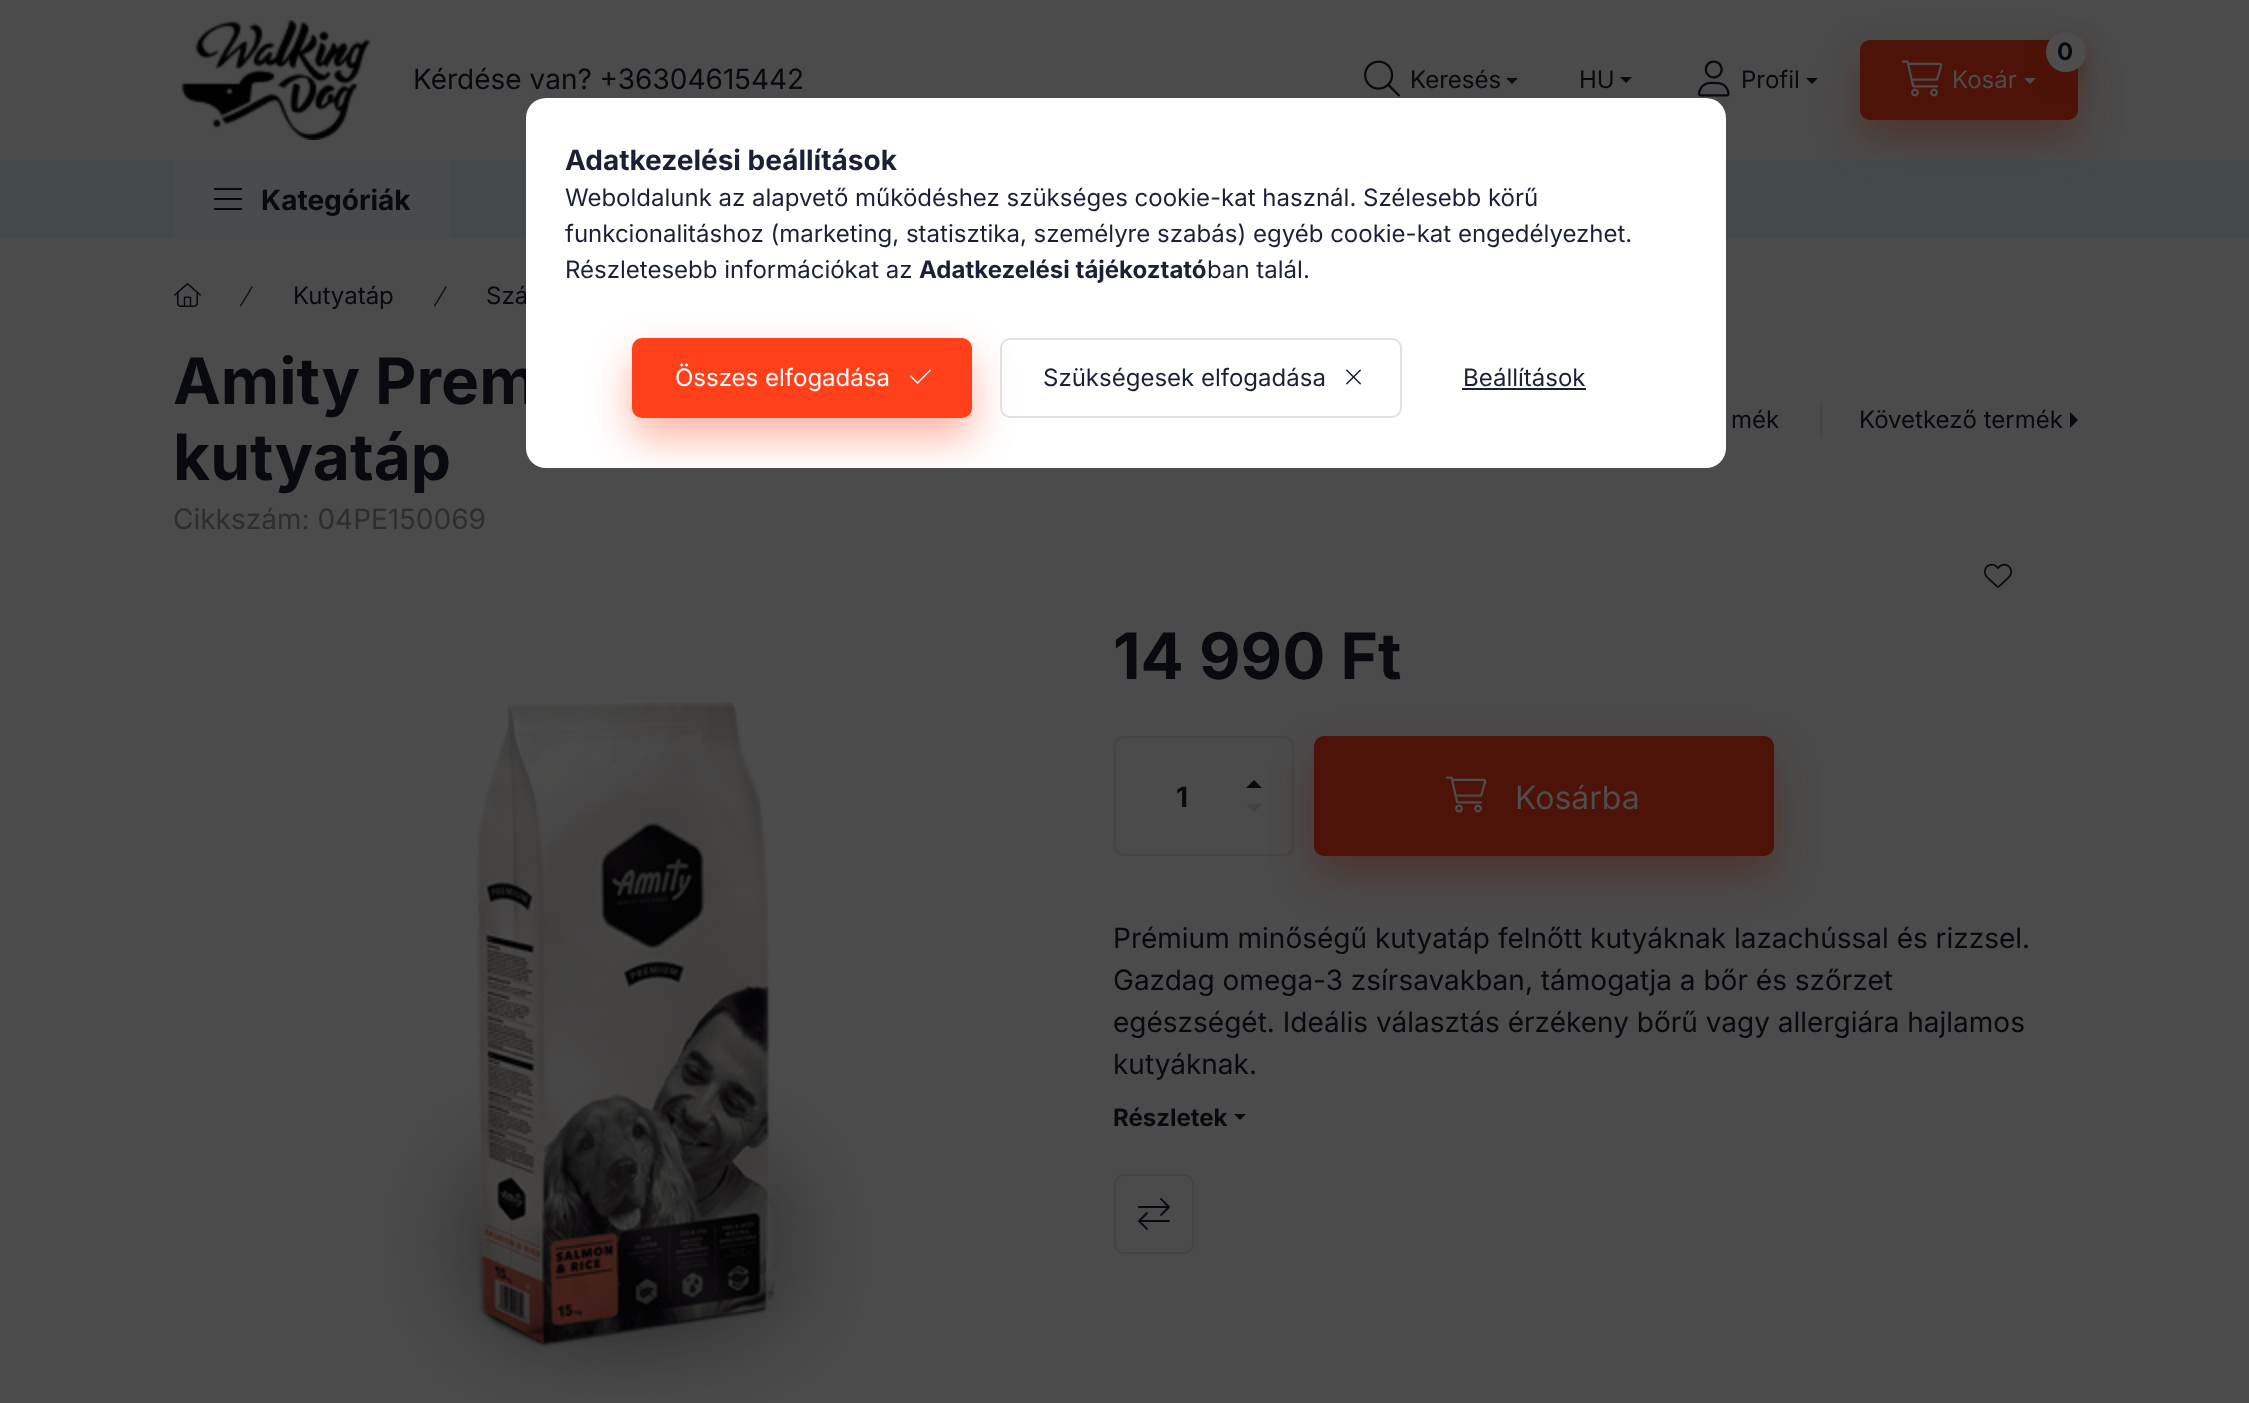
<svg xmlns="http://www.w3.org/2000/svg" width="2249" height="1403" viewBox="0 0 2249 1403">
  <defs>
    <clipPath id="clip1"><rect x="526" y="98" width="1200" height="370" rx="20"/></clipPath>
  </defs>
  <rect width="100%" height="100%" fill="#4b4b4b"/>
  <image x="181" y="20" width="190" height="120" href="img/1.png"/>
  <image x="1364" y="60" width="36" height="37" href="img/2.png"/>
  <path d="M1506 78H1518L1512 84Z" fill="#080a10"/>
  <path d="M1620 77H1632L1626 83Z" fill="#080a10"/>
  <image x="1698" y="60" width="32" height="37" href="img/3.png"/>
  <path d="M0 160h2249v78H0z" fill="#444a4c"/>
  <rect x="1860" y="60" width="218" height="80" rx="10" fill="#4d130866" filter="blur(20px)"/>
  <path d="M1806 78H1818L1812 84Z" fill="#080a10"/>
  <rect x="1860" y="40" width="218" height="80" rx="10" fill="#4d1308"/>
  <rect x="2046" y="42" width="40" height="40" rx="20" fill="#4d130866" filter="blur(10px)"/>
  <circle cx="2066" cy="52" r="20" fill="#4d4d4d"/>
  <image x="1902" y="60" width="41" height="37" href="img/4.png"/>
  <path d="M2024 78H2036L2030 84Z" fill="#4d4d4d"/>
  <path d="M174 160h276v78H174z" fill="#474b4c"/>
  <path d="M214 188h28v2H214z" fill="#080a10"/>
  <path d="M214 198h28v2H214z" fill="#080a10"/>
  <path d="M214 208h28v2H214z" fill="#080a10"/>
  <image x="174" y="283" width="27" height="24" href="img/5.png"/>
  <image x="240" y="286" width="13" height="21" href="img/6.png"/>
  <image x="434" y="286" width="13" height="21" href="img/6.png"/>
  <path d="M1820 402h2v36H1820z" fill="#444"/>
  <path d="M2070 428V412L2078 420Z" fill="#080a10"/>
  <image x="1984" y="563" width="28" height="25" href="img/7.png"/>
  <image x="375" y="700" width="504" height="703" href="img/8.png"/>
  <rect x="1115" y="737" width="178" height="118" rx="9" fill="none" stroke="#444" stroke-width="2"/>
  <path d="M1262 788H1246L1254 780Z" fill="#080a10"/>
  <path d="M1246 804H1262L1254 812Z" fill="#424242"/>
  <rect x="1314" y="756" width="460" height="120" rx="10" fill="#4d130866" filter="blur(20px)"/>
  <rect x="1314" y="736" width="460" height="120" rx="10" fill="#4d1308"/>
  <image x="1446" y="776" width="41" height="37" href="img/4.png"/>
  <path d="M1234 1114H1246L1240 1120Z" fill="#080a10"/>
  <rect x="1115" y="1175" width="78" height="78" rx="9" fill="none" stroke="#444" stroke-width="2"/>
  <image x="1138" y="1198" width="32" height="32" href="img/9.png"/>
  <text x="413" y="89" font-family="Inter" font-size="28" fill="#080a10">Kérdése van? +36304615442</text>
  <g font-family="Inter" font-size="24" fill="#080a10">
    <text x="1410" y="88">Keresés</text>
    <text x="1579" y="88">HU</text>
    <text x="1741" y="88">Profil</text>
  </g>
  <text x="2057" y="60" font-family="Inter" font-size="24" font-weight="bold" fill="#080a10">0</text>
  <text x="1952" y="88" font-family="Inter" font-size="24" fill="#4d4d4d">Kosár</text>
  <text x="261" y="210" font-family="Inter" font-size="28" font-weight="bold" fill="#080a10">Kategóriák</text>
  <g font-family="Inter" font-size="24" fill="#080a10">
    <text x="293" y="304">Kutyatáp</text>
    <text x="486" y="304">Szá</text>
  </g>
  <g font-family="Inter" font-size="64" font-weight="bold" fill="#080a10">
    <text x="173" y="404">Amity Prem</text>
    <text x="173" y="480">kutyatáp</text>
  </g>
  <g font-family="Inter" font-size="24" fill="#080a10">
    <text x="1731" y="428">mék</text>
    <text x="1859" y="428">Következő termék</text>
  </g>
  <text x="173" y="529" font-family="Inter" font-size="28" fill="#2e2e2e">Cikkszám: 04PE150069</text>
  <text x="1113" y="679" font-family="Inter" font-size="64" font-weight="bold" fill="#080a10">14 990 Ft</text>
  <text x="1176" y="807" font-family="Inter" font-size="28" font-weight="bold" fill="#080a10">1</text>
  <text x="1515" y="809" font-family="Inter" font-size="32" fill="#4d4d4d">Kosárba</text>
  <g font-family="Inter" font-size="28" fill="#080a10">
    <text x="1113" y="948">Prémium minőségű kutyatáp felnőtt kutyáknak lazachússal és rizzsel.</text>
    <text x="1113" y="990">Gazdag omega-3 zsírsavakban, támogatja a bőr és szőrzet</text>
    <text x="1113" y="1032">egészségét. Ideális választás érzékeny bőrű vagy allergiára hajlamos</text>
    <text x="1113" y="1074">kutyáknak.</text>
  </g>
  <text x="1113" y="1126" font-family="Inter" font-size="24" font-weight="bold" fill="#080a10">Részletek</text>
  <rect x="526" y="98" width="1200" height="370" rx="20" fill="#fff"/>
  <text x="565" y="170" font-family="Inter" font-size="28" font-weight="bold" fill="#1b2036">Adatkezelési beállítások</text>
  <g font-family="Inter" font-size="24" fill="#1b2036">
    <text x="565" y="206">Weboldalunk az alapvető működéshez szükséges cookie-kat használ. Szélesebb körű</text>
    <text x="565" y="242">funkcionalitáshoz (marketing, statisztika, személyre szabás) egyéb cookie-kat engedélyezhet.</text>
    <text x="565" y="278">Részletesebb információkat az</text>
  </g>
  <text x="919" y="278" font-family="Inter" font-size="24" font-weight="bold" fill="#1b2036">Adatkezelési tájékoztató</text>
  <text x="1207" y="278" font-family="Inter" font-size="24" fill="#1b2036">ban talál.</text>
  <g clip-path="url(#clip1)">
    <rect x="632" y="358" width="340" height="80" rx="10" fill="#ff401b66" filter="blur(20px)"/>
  </g>
  <rect x="633" y="339" width="338" height="78" rx="9" fill="#ff401b" stroke="#ff401b" stroke-width="2"/>
  <text x="675" y="386" font-family="Inter" font-size="24" fill="#fff">Összes elfogadása</text>
  <image x="910" y="369" width="21" height="15" href="img/10.png"/>
  <rect x="1001" y="339" width="400" height="78" rx="9" fill="none" stroke="#e1e1e1" stroke-width="2"/>
  <text x="1043" y="386" font-family="Inter" font-size="24" fill="#1b2036">Szükségesek elfogadása</text>
  <image x="1346" y="369" width="15" height="16" href="img/11.png"/>
  <text x="1463" y="386" font-family="Inter" font-size="24" fill="#1b2036">Beállítások</text>
  <path d="M1462 388h124v2H1462z" fill="#1b2036"/>
</svg>
